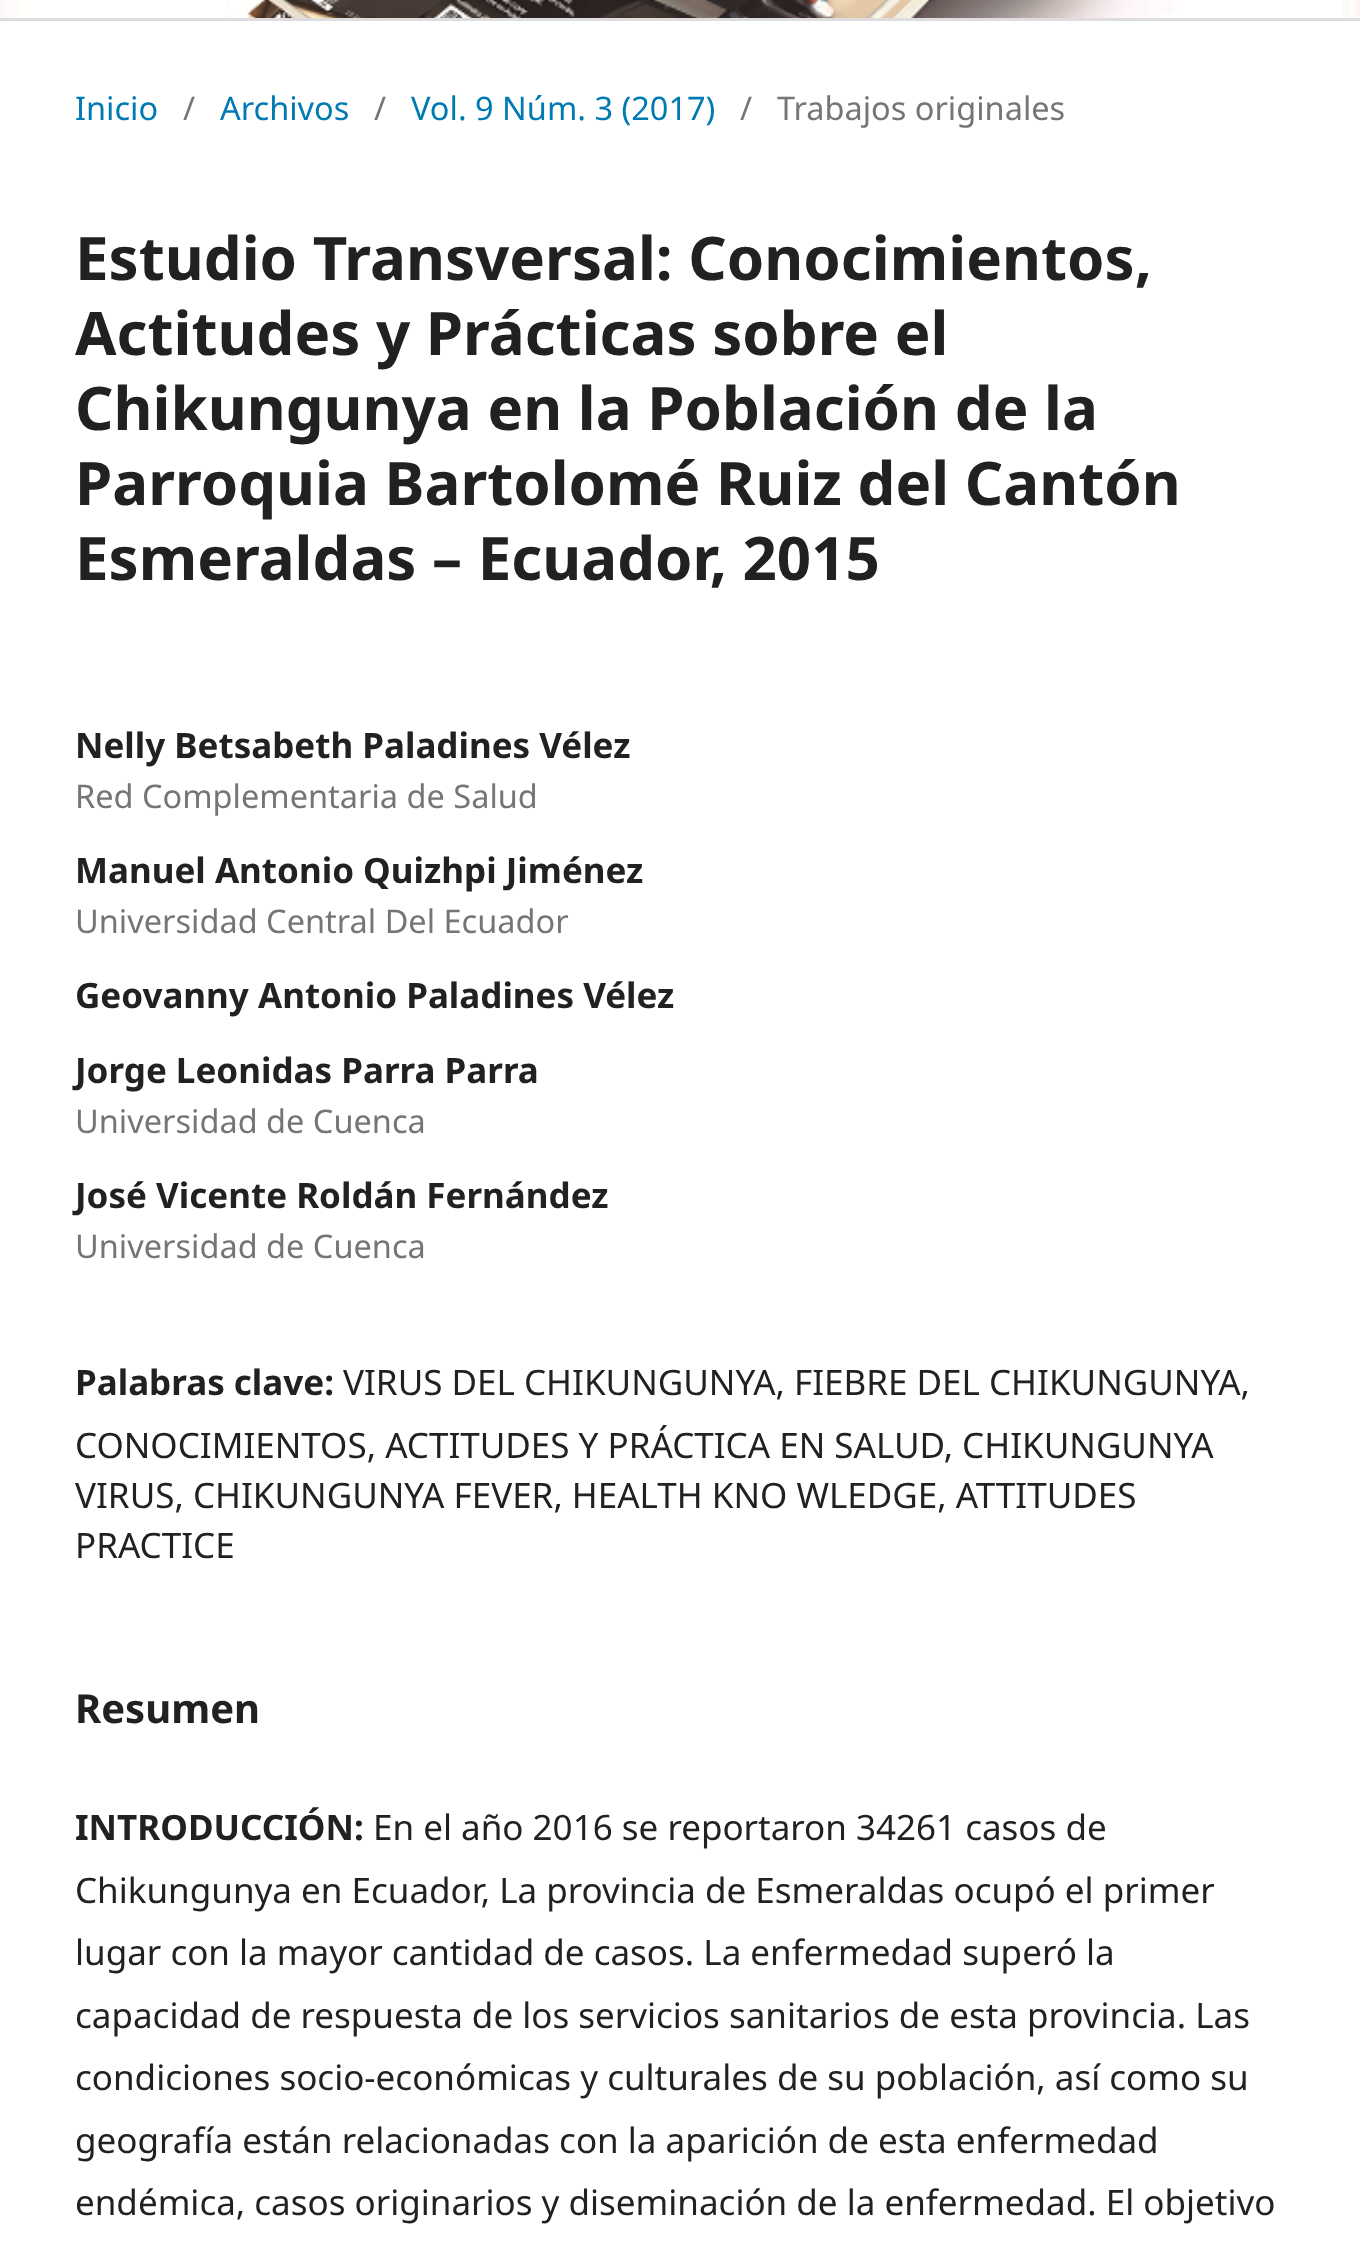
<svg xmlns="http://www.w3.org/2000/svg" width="1360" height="2260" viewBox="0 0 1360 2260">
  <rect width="100%" height="100%" fill="#fff"/>
  <image x="0" y="0" width="1360" height="18" href="img/1.png"/>
  <path d="M0 18h1360v3H0z" fill="#ddd"/>
  <text x="75" y="120" font-family="Noto Sans" font-size="32.5" fill="#007ab2">Inicio</text>
  <text x="183" y="120" font-family="Noto Sans" font-size="32.5" fill="#757575">/</text>
  <text x="220" y="120" font-family="Noto Sans" font-size="32.5" fill="#007ab2">Archivos</text>
  <text x="374" y="120" font-family="Noto Sans" font-size="32.5" fill="#757575">/</text>
  <text x="411" y="120" font-family="Noto Sans" font-size="32.5" fill="#007ab2">Vol. 9 Núm. 3 (2017)</text>
  <g font-family="Noto Sans" font-size="32.5" fill="#757575">
    <text x="740" y="120">/</text>
    <text x="777" y="120">Trabajos originales</text>
  </g>
  <g font-family="Noto Sans" font-size="60" font-weight="bold" fill="#212121">
    <text x="75" y="280">Estudio Transversal: Conocimientos,</text>
    <text x="75" y="355">Actitudes y Prácticas sobre el</text>
    <text x="75" y="430">Chikungunya en la Población de la</text>
    <text x="75" y="505">Parroquia Bartolomé Ruiz del Cantón</text>
    <text x="75" y="580">Esmeraldas – Ecuador, 2015</text>
  </g>
  <text x="75" y="758" font-family="Noto Sans" font-size="35" font-weight="bold" fill="#212121">Nelly Betsabeth Paladines Vélez</text>
  <text x="75" y="808" font-family="Noto Sans" font-size="32.5" fill="#757575">Red Complementaria de Salud</text>
  <text x="75" y="883" font-family="Noto Sans" font-size="35" font-weight="bold" fill="#212121">Manuel Antonio Quizhpi Jiménez</text>
  <text x="75" y="933" font-family="Noto Sans" font-size="32.5" fill="#757575">Universidad Central Del Ecuador</text>
  <g font-family="Noto Sans" font-size="35" font-weight="bold" fill="#212121">
    <text x="75" y="1008">Geovanny Antonio Paladines Vélez</text>
    <text x="75" y="1083">Jorge Leonidas Parra Parra</text>
  </g>
  <text x="75" y="1133" font-family="Noto Sans" font-size="32.5" fill="#757575">Universidad de Cuenca</text>
  <text x="75" y="1208" font-family="Noto Sans" font-size="35" font-weight="bold" fill="#212121">José Vicente Roldán Fernández</text>
  <text x="75" y="1258" font-family="Noto Sans" font-size="32.5" fill="#757575">Universidad de Cuenca</text>
  <text x="75" y="1395" font-family="Noto Sans" font-size="35" font-weight="bold" fill="#212121">Palabras clave:</text>
  <g font-family="Noto Sans" font-size="35" fill="#212121">
    <text x="343" y="1395">VIRUS DEL CHIKUNGUNYA, FIEBRE DEL CHIKUNGUNYA,</text>
    <text x="75" y="1458">CONOCIMIENTOS, ACTITUDES Y PRÁCTICA EN SALUD, CHIKUNGUNYA</text>
    <text x="75" y="1508">VIRUS, CHIKUNGUNYA FEVER, HEALTH KNO WLEDGE, ATTITUDES</text>
    <text x="75" y="1558">PRACTICE</text>
  </g>
  <text x="75" y="1723" font-family="Noto Sans" font-size="40" font-weight="bold" fill="#212121">Resumen</text>
  <text x="75" y="1840" font-family="Noto Sans" font-size="35" font-weight="bold" fill="#212121">INTRODUCCIÓN:</text>
  <g font-family="Noto Sans" font-size="35" fill="#212121">
    <text x="373" y="1840">En el año 2016 se reportaron 34261 casos de</text>
    <text x="75" y="1903">Chikungunya en Ecuador, La provincia de Esmeraldas ocupó el primer</text>
    <text x="75" y="1965">lugar con la mayor cantidad de casos. La enfermedad superó la</text>
    <text x="75" y="2028">capacidad de respuesta de los servicios sanitarios de esta provincia. Las</text>
    <text x="75" y="2090">condiciones socio-económicas y culturales de su población, así como su</text>
    <text x="75" y="2153">geografía están relacionadas con la aparición de esta enfermedad</text>
    <text x="75" y="2215">endémica, casos originarios y diseminación de la enfermedad. El objetivo</text>
  </g>
</svg>
